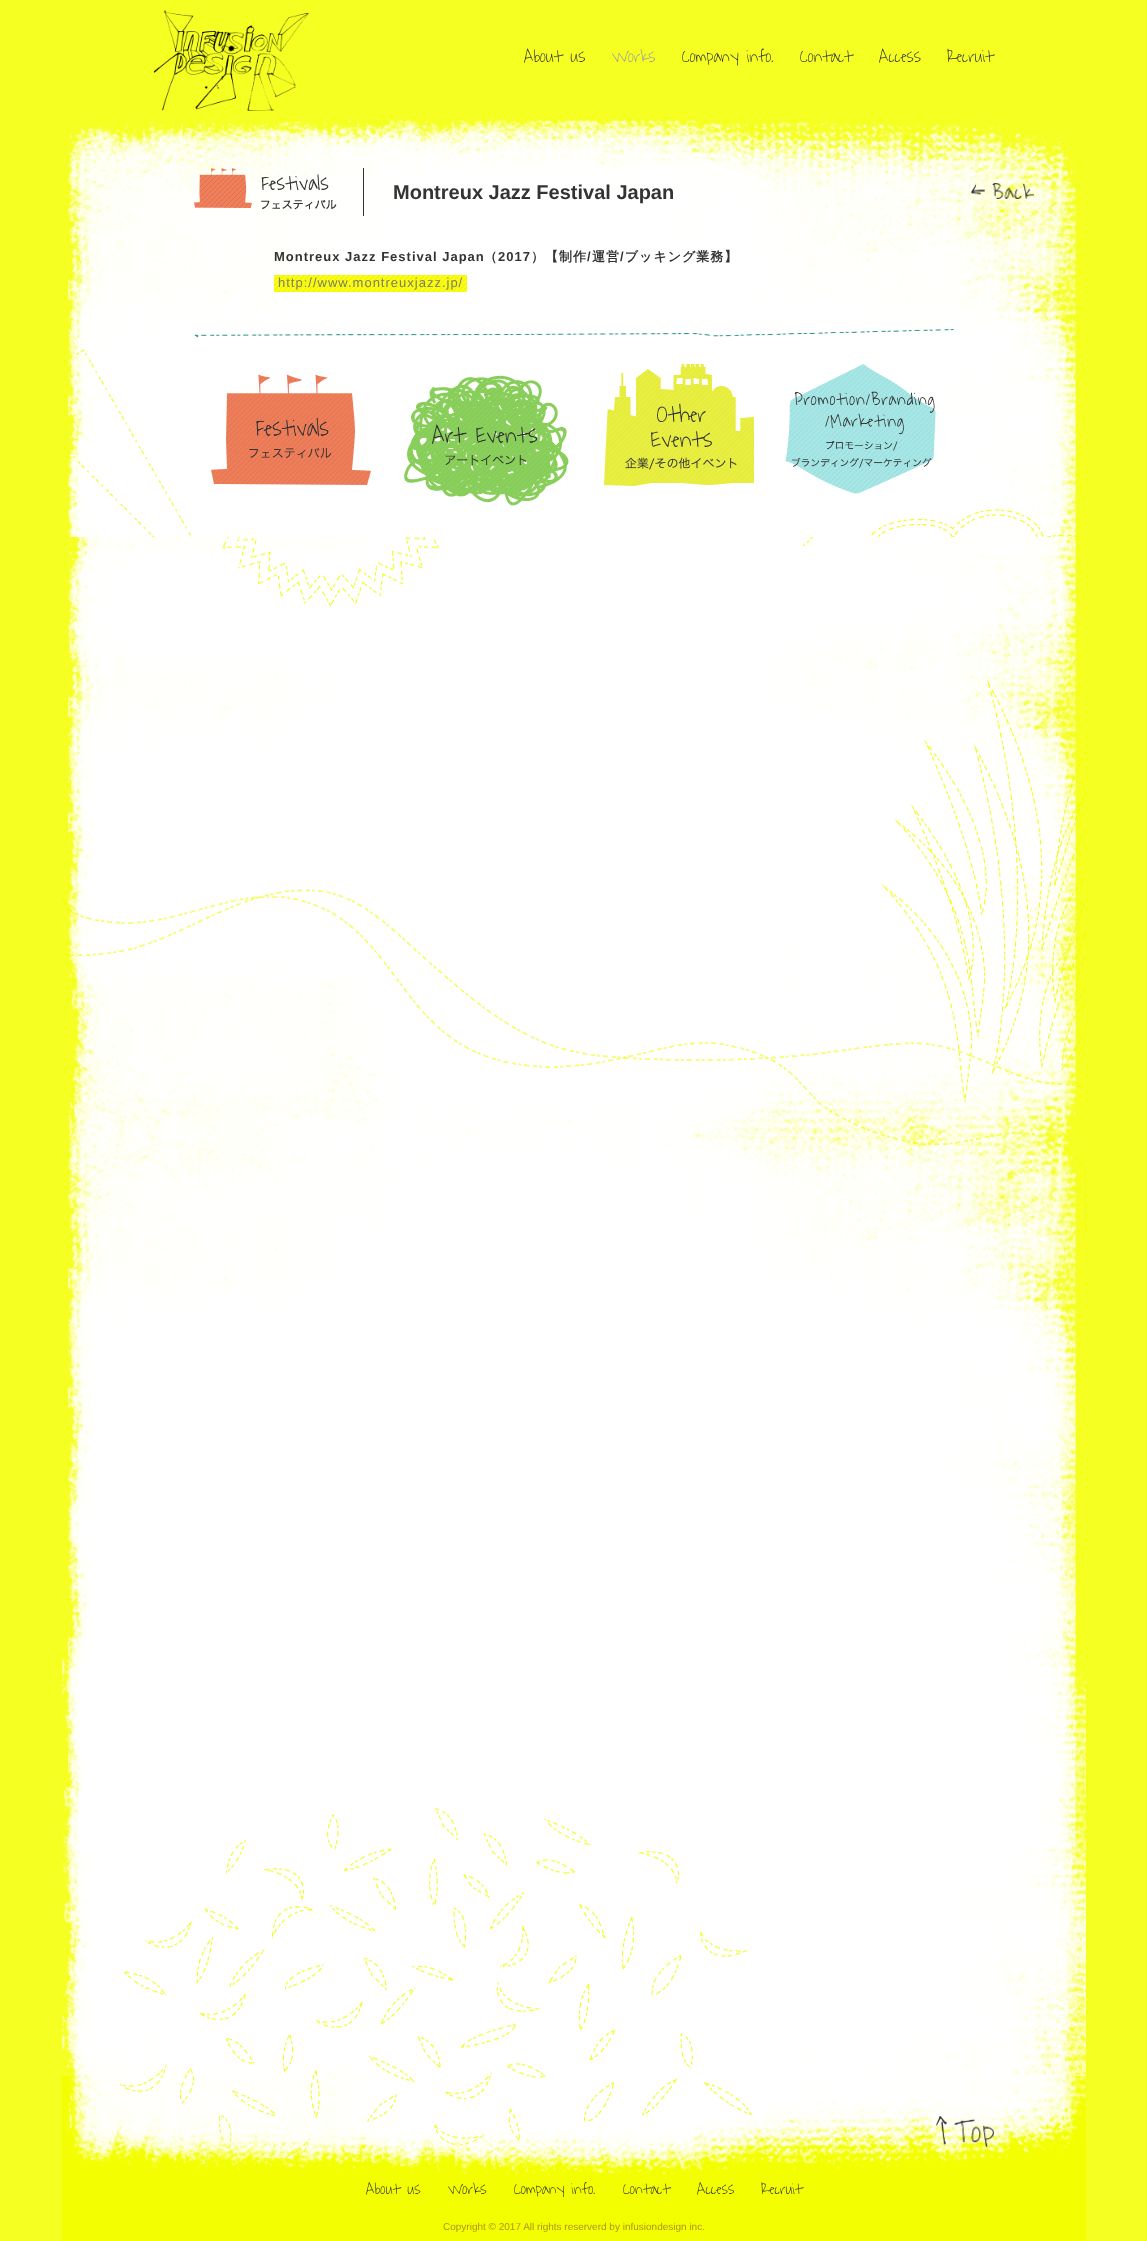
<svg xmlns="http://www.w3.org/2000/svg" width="1147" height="2241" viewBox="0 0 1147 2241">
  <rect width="100%" height="100%" fill="#f6ff22"/>
  <image x="62" y="537" width="1024" height="1643" href="img/1.png"/>
  <image x="154" y="10" width="155" height="101" href="img/2.png"/>
  <image x="63" y="120" width="1018" height="417" href="img/3.png"/>
  <path d="M363 168h1v48H363z" fill="#333"/>
  <image x="194" y="168" width="143" height="42" href="img/4.png"/>
  <image x="971" y="183" width="63" height="16" href="img/5.png"/>
  <image x="274" y="275" width="193" height="17" href="img/6.png"/>
  <image x="194" y="329" width="760" height="9" href="img/7.png"/>
  <image x="211" y="374" width="160" height="111" href="img/8.png"/>
  <image x="404" y="375" width="165" height="131" href="img/9.png"/>
  <image x="604" y="364" width="150" height="122" href="img/10.png"/>
  <image x="785" y="364" width="151" height="130" href="img/11.png"/>
  <image x="62" y="2076" width="1024" height="165" href="img/12.png"/>
  <image x="936" y="2116" width="58" height="31" href="img/13.png"/>
  <text x="524" y="62" font-family="Waiting for the Sunrise" font-size="18" font-weight="300" fill="#333">About us</text>
  <text x="612" y="62" font-family="Waiting for the Sunrise" font-size="18" font-weight="300" fill="#9b9b9b">Works</text>
  <g font-family="Waiting for the Sunrise" font-size="18" font-weight="300" fill="#333">
    <text x="682" y="62">Company info.</text>
    <text x="800" y="62">Contact</text>
    <text x="879" y="62">Access</text>
    <text x="947" y="62">Recruit</text>
  </g>
  <text x="393" y="199" font-family="Liberation Sans" font-size="20" font-weight="bold" fill="#333">Montreux Jazz Festival Japan</text>
  <g font-family="Liberation Sans" font-size="13" font-weight="bold" letter-spacing="1" fill="#333">
    <text x="274" y="261">Montreux Jazz Festival Japan</text>
    <text x="498" y="261">2017</text>
  </g>
  <g font-family="WenQuanYi Zen Hei" font-size="13" font-weight="bold" letter-spacing="1" fill="#333">
    <text x="531" y="261">）【制作 運営 ブッキング業務】</text>
    <text x="484" y="261">（</text>
  </g>
  <g font-family="Liberation Sans" font-size="13" font-weight="bold" letter-spacing="1" fill="#333">
    <text x="587" y="261">/</text>
    <text x="620" y="261">/</text>
  </g>
  <text x="278" y="287" font-family="Liberation Sans" font-size="13" letter-spacing="1" fill="#7b7c6b">http://www.montreuxjazz.jp/</text>
  <g font-family="Waiting for the Sunrise" font-size="16" font-weight="300" fill="#333">
    <text x="366" y="2194">About us</text>
    <text x="448" y="2194">Works</text>
    <text x="514" y="2194">Company info.</text>
    <text x="623" y="2194">Contact</text>
    <text x="697" y="2194">Access</text>
    <text x="761" y="2194">Recruit</text>
  </g>
  <text x="443" y="2230" font-family="Liberation Sans" font-size="10" fill="#af9416">Copyright © 2017 All rights reserverd by infusiondesign inc.</text>
</svg>
